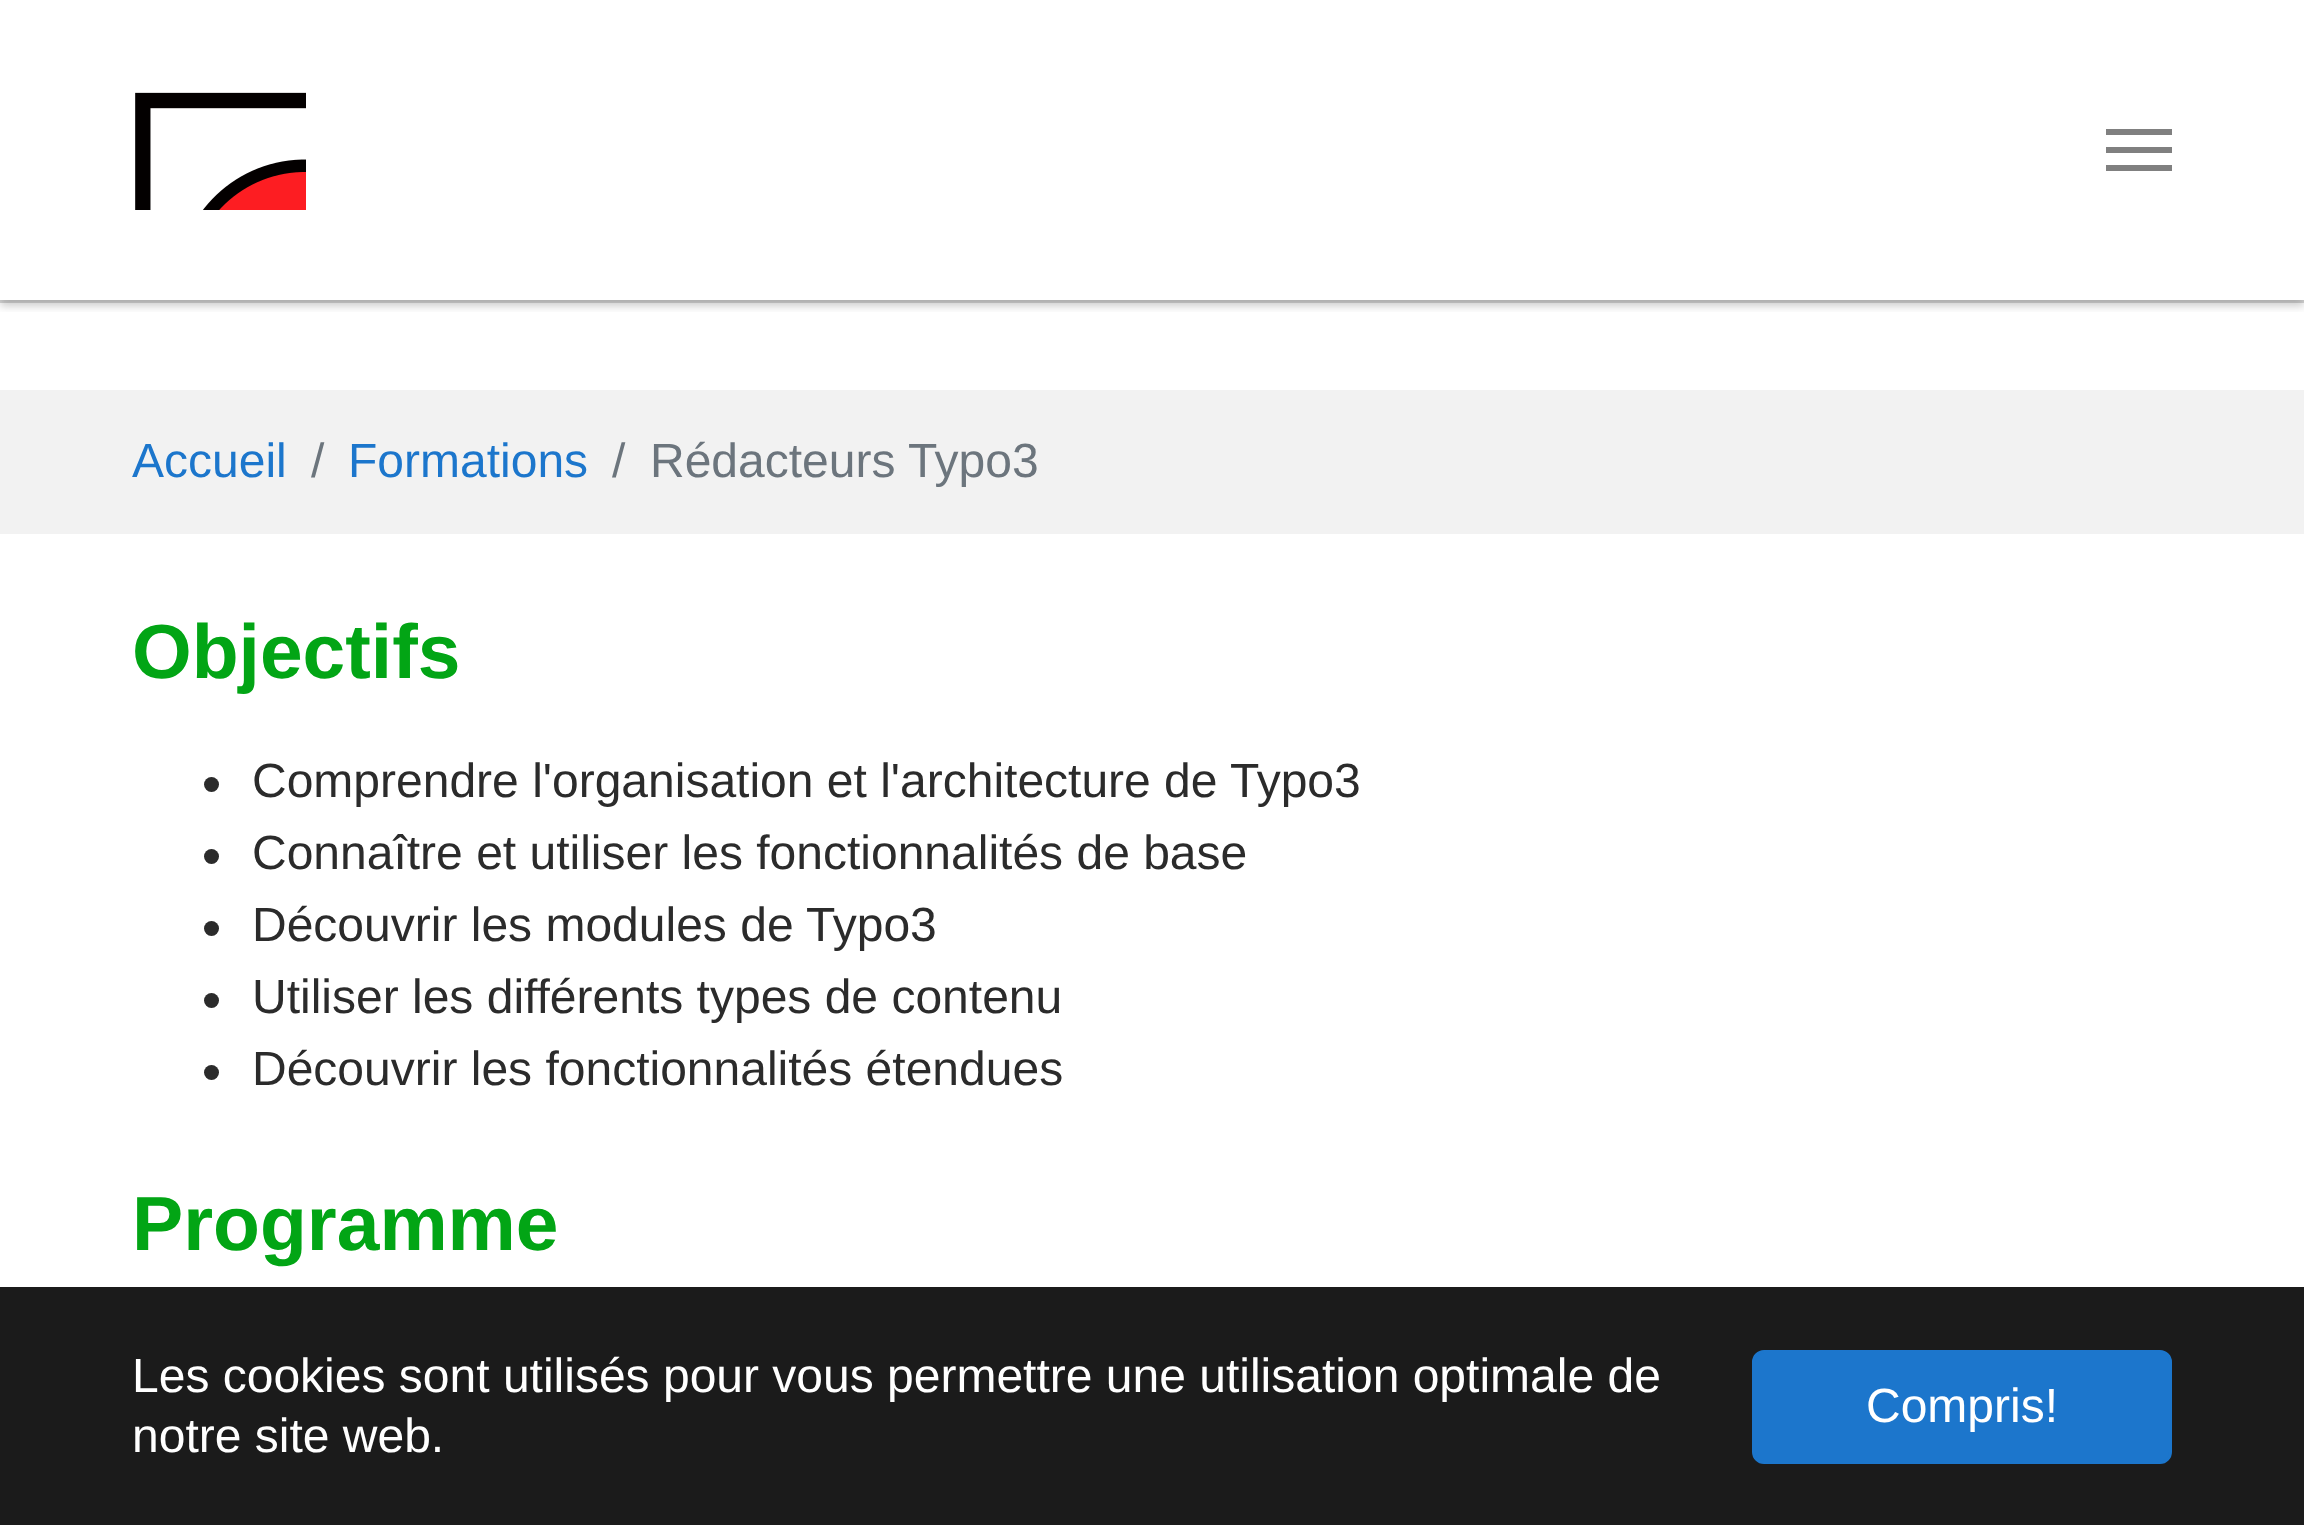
<svg xmlns="http://www.w3.org/2000/svg" width="2304" height="1525" viewBox="0 0 2304 1525">
  <defs>
    <clipPath id="clip1"><path d="M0 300h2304v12H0z"/></clipPath>
  </defs>
  <rect width="100%" height="100%" fill="#fff"/>
  <g clip-path="url(#clip1)">
    <path d="M0 6h2304v300H0z" fill="#00000033" filter="blur(4.5px)"/>
  </g>
  <path d="M-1.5 -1.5h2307v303H-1.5z" fill="none" stroke="#00000026" stroke-width="3"/>
  <image x="135" y="92" width="171" height="118" href="img/1.png"/>
  <path d="M2106 147h66v6H2106z" fill="#808080"/>
  <path d="M2106 129h66v6H2106z" fill="#808080"/>
  <path d="M2106 165h66v6H2106z" fill="#808080"/>
  <path d="M0 390h2304v144H0z" fill="#f2f2f2"/>
  <circle cx="211.5" cy="784.5" r="7.5" fill="#2b2b2b"/>
  <circle cx="211.5" cy="856.5" r="7.5" fill="#2b2b2b"/>
  <circle cx="211.5" cy="928.5" r="7.5" fill="#2b2b2b"/>
  <circle cx="211.5" cy="1000.5" r="7.5" fill="#2b2b2b"/>
  <circle cx="211.5" cy="1072.5" r="7.5" fill="#2b2b2b"/>
  <path d="M0 1287h2304v238H0z" fill="#1b1b1b"/>
  <rect x="1753.5" y="1351.5" width="417" height="111" rx="10.5" fill="#1c76cc" stroke="#1c76cc" stroke-width="3"/>
  <text x="132" y="477" font-family="Liberation Sans" font-size="48" fill="#1c76cc">Accueil</text>
  <text x="311" y="477" font-family="Liberation Sans" font-size="48" fill="#6c757d">/</text>
  <text x="348" y="477" font-family="Liberation Sans" font-size="48" fill="#1c76cc">Formations</text>
  <g font-family="Liberation Sans" font-size="48" fill="#6c757d">
    <text x="612" y="477">/</text>
    <text x="650" y="477">Rédacteurs Typo3</text>
  </g>
  <text x="132" y="678" font-family="Liberation Sans" font-size="76.75" font-weight="bold" fill="#02a515">Objectifs</text>
  <g font-family="Liberation Sans" font-size="48" fill="#2b2b2b">
    <text x="252" y="797">Comprendre l'organisation et l'architecture de Typo3</text>
    <text x="252" y="869">Connaître et utiliser les fonctionnalités de base</text>
    <text x="252" y="941">Découvrir les modules de Typo3</text>
    <text x="252" y="1013">Utiliser les différents types de contenu</text>
    <text x="252" y="1085">Découvrir les fonctionnalités étendues</text>
  </g>
  <text x="132" y="1250" font-family="Liberation Sans" font-size="76.75" font-weight="bold" fill="#02a515">Programme</text>
  <g font-family="Liberation Sans" font-size="48" fill="#fff">
    <text x="132" y="1392">Les cookies sont utilisés pour vous permettre une utilisation optimale de</text>
    <text x="132" y="1452">notre site web.</text>
    <text x="1866" y="1422">Compris!</text>
  </g>
</svg>
